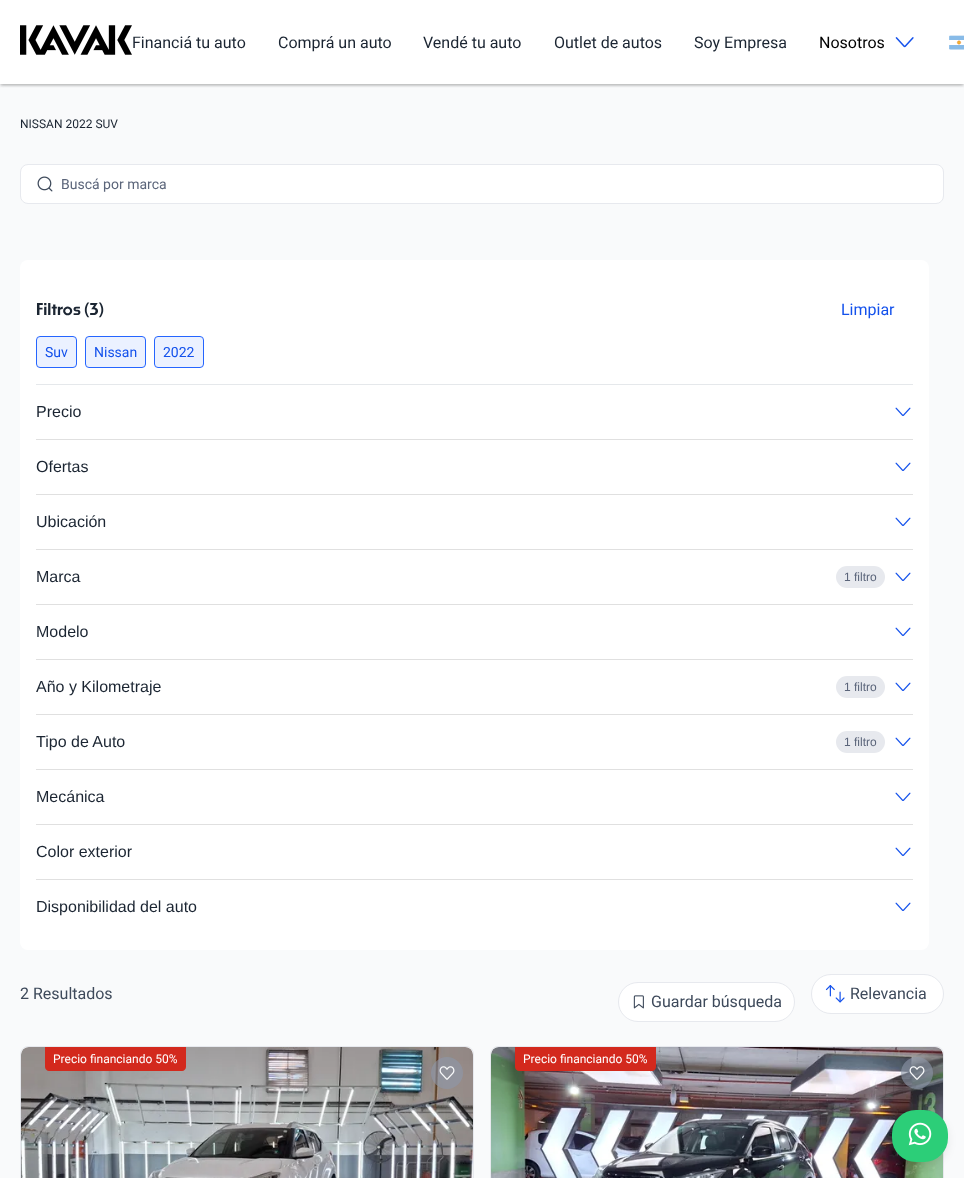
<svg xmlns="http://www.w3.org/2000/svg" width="964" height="1178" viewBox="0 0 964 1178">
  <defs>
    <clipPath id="clip1"><path d="M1 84h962v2H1z"/></clipPath>
    <clipPath id="clip2"><path d="M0 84h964v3H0z"/></clipPath>
    <clipPath id="clip3"><path d="M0 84h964v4H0z"/></clipPath>
  </defs>
  <rect width="100%" height="100%" fill="#fff"/>
  <path d="M0 84h964v1094H0z" fill="#f9fafb"/>
  <g clip-path="url(#clip1)">
    <path d="M2 5h960v80H2z" fill="#46464626" filter="blur(1px)"/>
  </g>
  <g clip-path="url(#clip2)">
    <path d="M0 2h964v84H0z" fill="#46464626" filter="blur(1px)"/>
  </g>
  <g clip-path="url(#clip3)">
    <path d="M0 1h964v84H0z" fill="#46464626" filter="blur(2.5px)"/>
  </g>
  <image x="20" y="25" width="112" height="30" href="img/1.png"/>
  <image x="895" y="37" width="19" height="11" href="img/2.png"/>
  <image x="949" y="35" width="15" height="15" href="img/3.png"/>
  <rect x="20.5" y="164.5" width="923" height="39" rx="7.5" fill="#fff" stroke="#e7e9ee"/>
  <image x="37" y="176" width="16" height="16" href="img/4.png"/>
  <rect x="20" y="260" width="909" height="690" rx="8" fill="#fff"/>
  <path d="M36 384h877v1H36z" fill="#e5e8eb"/>
  <rect x="36.5" y="336.5" width="40" height="31" rx="3.5" fill="#ebf1ff" stroke="#2565ff"/>
  <rect x="85.5" y="336.5" width="60" height="31" rx="3.5" fill="#ebf1ff" stroke="#2565ff"/>
  <rect x="154.5" y="336.5" width="49" height="31" rx="3.5" fill="#ebf1ff" stroke="#2565ff"/>
  <path d="M36 439h877v1H36z" fill="#e0e0e0"/>
  <image x="895" y="407" width="16" height="9" href="img/5.png"/>
  <path d="M36 494h877v1H36z" fill="#e0e0e0"/>
  <image x="895" y="462" width="16" height="9" href="img/5.png"/>
  <path d="M36 549h877v1H36z" fill="#e0e0e0"/>
  <image x="895" y="517" width="16" height="9" href="img/5.png"/>
  <path d="M36 604h877v1H36z" fill="#e0e0e0"/>
  <rect x="836" y="566" width="49" height="22" rx="11" fill="#e7e9ee"/>
  <image x="895" y="572" width="16" height="9" href="img/5.png"/>
  <path d="M36 659h877v1H36z" fill="#e0e0e0"/>
  <image x="895" y="627" width="16" height="9" href="img/5.png"/>
  <path d="M36 714h877v1H36z" fill="#e0e0e0"/>
  <rect x="836" y="676" width="49" height="22" rx="11" fill="#e7e9ee"/>
  <image x="895" y="682" width="16" height="9" href="img/5.png"/>
  <path d="M36 769h877v1H36z" fill="#e0e0e0"/>
  <rect x="836" y="731" width="49" height="22" rx="11" fill="#e7e9ee"/>
  <image x="895" y="737" width="16" height="9" href="img/5.png"/>
  <path d="M36 824h877v1H36z" fill="#e0e0e0"/>
  <image x="895" y="792" width="16" height="9" href="img/5.png"/>
  <path d="M36 879h877v1H36z" fill="#e0e0e0"/>
  <image x="895" y="847" width="16" height="9" href="img/5.png"/>
  <image x="895" y="902" width="16" height="9" href="img/5.png"/>
  <rect x="811.5" y="974.5" width="132" height="39" rx="19.5" fill="#fff" stroke="#e7e9ee"/>
  <image x="825" y="985" width="20" height="18" href="img/6.png"/>
  <rect x="618.5" y="982.5" width="176" height="39" rx="19.5" fill="#fff" stroke="#e7e9ee"/>
  <image x="633" y="995" width="11" height="14" href="img/7.png"/>
  <rect x="20.5" y="1046.5" width="453" height="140" rx="7.5" fill="#fff" stroke="#e7e9ee"/>
  <path d="M29 1047H465C469.5 1047 473 1050.5 473 1055V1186H21V1055C21 1050.5 24.5 1047 29 1047Z" fill="#eff1f5"/>
  <image x="21" y="1047" width="452" height="131" href="img/8.png"/>
  <path d="M45 1047H186V1067C186 1069 184 1071 182 1071H49C47 1071 45 1069 45 1067Z" fill="#d3291d"/>
  <circle cx="447" cy="1073" r="16" fill="#8d98aa99"/>
  <image x="439" y="1066" width="16" height="14" href="img/9.png"/>
  <rect x="490.5" y="1046.5" width="453" height="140" rx="7.5" fill="#fff" stroke="#e7e9ee"/>
  <path d="M499 1047H935C939.5 1047 943 1050.5 943 1055V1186H491V1055C491 1050.5 494.5 1047 499 1047Z" fill="#eff1f5"/>
  <image x="491" y="1047" width="452" height="131" href="img/10.png"/>
  <path d="M515 1047H656V1067C656 1069 654 1071 652 1071H519C517 1071 515 1069 515 1067Z" fill="#d3291d"/>
  <circle cx="917" cy="1073" r="16" fill="#8d98aa99"/>
  <image x="909" y="1066" width="16" height="14" href="img/11.png"/>
  <rect x="892" y="1114" width="56" height="52" rx="24" fill="#00000014" filter="blur(4px)"/>
  <rect x="892" y="1110" width="56" height="52" rx="24" fill="#2cce78"/>
  <image x="908" y="1122" width="24" height="24" href="img/12.png"/>
  <g font-family="Roboto" font-size="16" fill="#1b2532">
    <text x="132" y="48">Financiá tu auto</text>
    <text x="278" y="48">Comprá un auto</text>
    <text x="423" y="48">Vendé tu auto</text>
    <text x="554" y="48">Outlet de autos</text>
    <text x="694" y="48">Soy Empresa</text>
  </g>
  <text x="819" y="48" font-family="Roboto" font-size="16" fill="#000">Nosotros</text>
  <text x="20" y="128" font-family="Roboto" font-size="12" fill="#1b2532">NISSAN 2022 SUV</text>
  <text x="61" y="189" font-family="Roboto" font-size="14" fill="#5b657a">Buscá por marca</text>
  <text x="36" y="315" font-family="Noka" font-size="16" font-weight="600" fill="#1b2532">Filtros (3)</text>
  <text x="841" y="315" font-family="Roboto" font-size="16" fill="#1351ec">Limpiar</text>
  <g font-family="Roboto" font-size="14" fill="#1351ec">
    <text x="45" y="357">Suv</text>
    <text x="94" y="357">Nissan</text>
    <text x="163" y="357">2022</text>
  </g>
  <g font-family="Liberation Sans" font-size="16" fill="#1b2532">
    <text x="36" y="417">Precio</text>
    <text x="36" y="472">Ofertas</text>
    <text x="36" y="527">Ubicación</text>
    <text x="36" y="582">Marca</text>
  </g>
  <text x="844" y="581" font-family="Liberation Sans" font-size="12" fill="#5b657a">1 filtro</text>
  <g font-family="Liberation Sans" font-size="16" fill="#1b2532">
    <text x="36" y="637">Modelo</text>
    <text x="36" y="692">Año y Kilometraje</text>
  </g>
  <text x="844" y="691" font-family="Liberation Sans" font-size="12" fill="#5b657a">1 filtro</text>
  <text x="36" y="747" font-family="Liberation Sans" font-size="16" fill="#1b2532">Tipo de Auto</text>
  <text x="844" y="746" font-family="Liberation Sans" font-size="12" fill="#5b657a">1 filtro</text>
  <g font-family="Liberation Sans" font-size="16" fill="#1b2532">
    <text x="36" y="802">Mecánica</text>
    <text x="36" y="857">Color exterior</text>
    <text x="36" y="912">Disponibilidad del auto</text>
  </g>
  <g font-family="Roboto" font-size="16" fill="#3e4a5b">
    <text x="20" y="999">2 Resultados</text>
    <text x="850" y="999">Relevancia</text>
    <text x="651" y="1007">Guardar búsqueda</text>
  </g>
  <g font-family="Roboto" font-size="12" fill="#fff">
    <text x="53" y="1063">Precio financiando 50%</text>
    <text x="523" y="1063">Precio financiando 50%</text>
  </g>
</svg>
